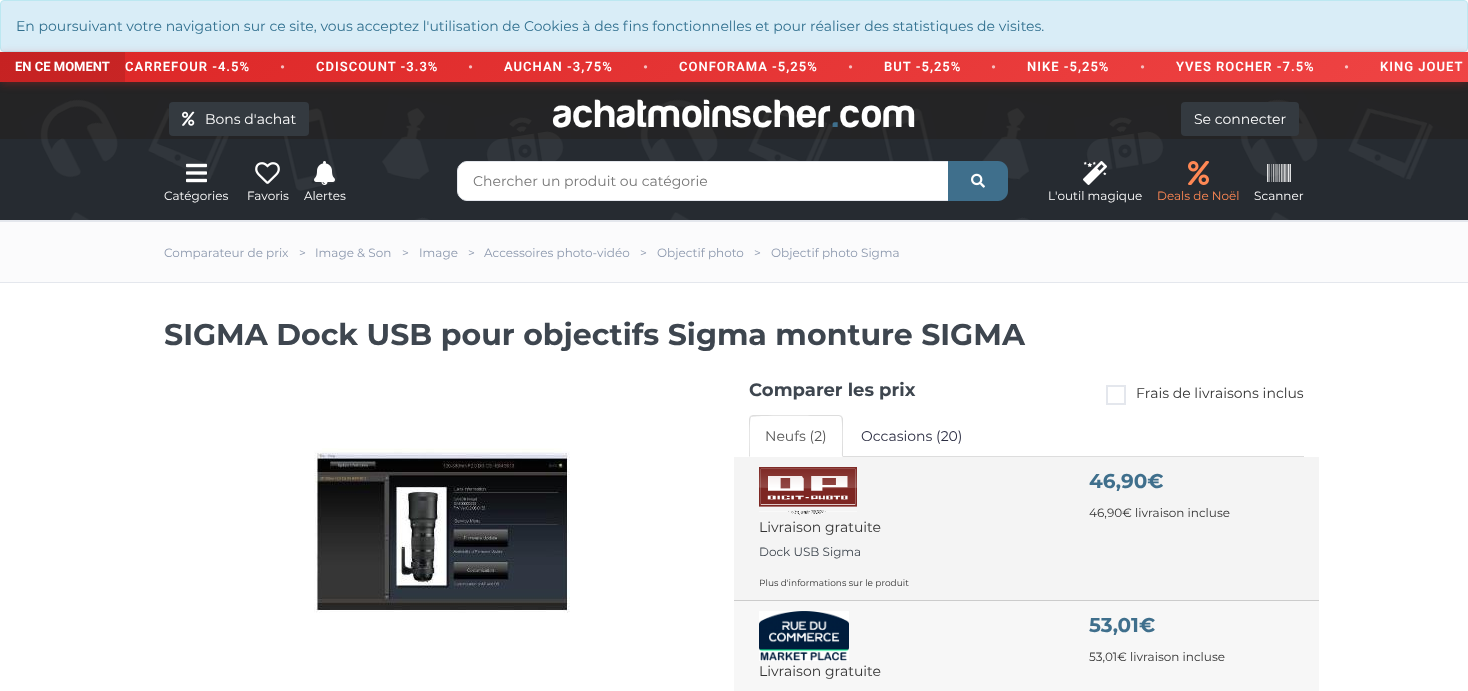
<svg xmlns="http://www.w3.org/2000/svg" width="1468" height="691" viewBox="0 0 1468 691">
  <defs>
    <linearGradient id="g1" gradientUnits="userSpaceOnUse" x1="360" y1="-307" x2="1109" y2="441"><stop offset="0" stop-color="#dc2626"/><stop offset="1" stop-color="#ef4444"/></linearGradient>
    <linearGradient id="g2" gradientUnits="userSpaceOnUse" x1="360" y1="-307" x2="1109" y2="441"><stop offset="0" stop-color="#c62222"/><stop offset="1" stop-color="#d73d3d"/></linearGradient>
  </defs>
  <rect width="100%" height="100%" fill="#fff"/>
  <rect x="0.5" y="0.5" width="1467" height="51" rx="3.5" fill="#d9edf7" stroke="#bce8f1"/>
  <image x="0" y="82" width="1468" height="138" href="img/1.png"/>
  <path d="M0 54h1468v30H0z" fill="#dc26264d" filter="blur(4px)"/>
  <path d="M125 52h1343v30H125z" fill="url(#g1)"/>
  <path d="M0 52h125v30H0z" fill="url(#g2)"/>
  <rect x="169" y="102" width="140" height="34" rx="4" fill="#343a40"/>
  <image x="182" y="111" width="13" height="15" href="img/2.png"/>
  <rect x="1181" y="102" width="118" height="34" rx="4" fill="#343a40"/>
  <path d="M467 161.5H951.5V200.5H467C462 200.5 457.5 196 457.5 191V171C457.5 166 462 161.5 467 161.5Z" fill="#fff" stroke="#e4e7ed"/>
  <path d="M948 161H998C1003.5 161 1008 165.5 1008 171V191C1008 196.5 1003.5 201 998 201H948Z" fill="#3f6f8c"/>
  <image x="971" y="173" width="14" height="15" href="img/3.png"/>
  <image x="186" y="163" width="21" height="20" href="img/4.png"/>
  <image x="255" y="162" width="25" height="22" href="img/5.png"/>
  <image x="314" y="161" width="21" height="24" href="img/6.png"/>
  <image x="1083" y="161" width="24" height="24" href="img/7.png"/>
  <image x="1188" y="161" width="21" height="24" href="img/8.png"/>
  <image x="1267" y="164" width="24" height="18" href="img/9.png"/>
  <path d="M0 220h1468v2H0z" fill="#e4e7ed"/>
  <path d="M0 222h1468v60H0z" fill="#fbfbfc"/>
  <path d="M0 282h1468v1H0z" fill="#e4e7ed"/>
  <image x="314" y="448" width="256" height="165" href="img/10.png"/>
  <path d="M1107 386h18v18H1107z" fill="none" stroke="#e4e7ed" stroke-width="2"/>
  <path d="M843 456h461v1H843z" fill="#ddd"/>
  <path d="M753 415L750 416L751 417C753 415 817 416 825 416H839L841 417L842 416L839 415Z" fill="#ddd"/>
  <path d="M843 457V419C843 418 842 417 842 416L841 417C843 419 842 451 842 456Z" fill="#ddd"/>
  <path d="M749 457L750 456C750 451 749 419 751 417L750 416L749 419Z" fill="#ddd"/>
  <path d="M734 457h585v143H734z" fill="#f4f4f4"/>
  <path d="M734 600h585v1H734z" fill="#ccc"/>
  <image x="759" y="467" width="98" height="48" href="img/11.png"/>
  <path d="M734 601h585v90H734z" fill="#f7f7f7"/>
  <image x="759" y="611" width="90" height="50" href="img/12.png"/>
  <text x="16" y="31" font-family="Montserrat" font-size="14" fill="#31708f">En poursuivant votre navigation sur ce site, vous acceptez l'utilisation de Cookies à des fins fonctionnelles et pour réaliser des statistiques de visites.</text>
  <text x="15" y="71" font-family="Roboto" font-size="13" font-weight="bold" fill="#fff">EN CE MOMENT</text>
  <text x="125" y="71" font-family="Roboto" font-size="13" font-weight="600" letter-spacing="1" fill="#fff">CARREFOUR -4.5%</text>
  <text x="280" y="72" font-family="Roboto" font-size="14" font-weight="600" letter-spacing="1" fill="#f6c0c0">•</text>
  <text x="316" y="71" font-family="Roboto" font-size="13" font-weight="600" letter-spacing="1" fill="#fff">CDISCOUNT -3.3%</text>
  <text x="468" y="72" font-family="Roboto" font-size="14" font-weight="600" letter-spacing="1" fill="#f6c0c0">•</text>
  <text x="504" y="71" font-family="Roboto" font-size="13" font-weight="600" letter-spacing="1" fill="#fff">AUCHAN -3,75%</text>
  <text x="643" y="72" font-family="Roboto" font-size="14" font-weight="600" letter-spacing="1" fill="#f6c0c0">•</text>
  <text x="679" y="71" font-family="Roboto" font-size="13" font-weight="600" letter-spacing="1" fill="#fff">CONFORAMA -5,25%</text>
  <text x="848" y="72" font-family="Roboto" font-size="14" font-weight="600" letter-spacing="1" fill="#f6c0c0">•</text>
  <text x="884" y="71" font-family="Roboto" font-size="13" font-weight="600" letter-spacing="1" fill="#fff">BUT -5,25%</text>
  <text x="991" y="72" font-family="Roboto" font-size="14" font-weight="600" letter-spacing="1" fill="#f6c0c0">•</text>
  <text x="1027" y="71" font-family="Roboto" font-size="13" font-weight="600" letter-spacing="1" fill="#fff">NIKE -5,25%</text>
  <text x="1140" y="72" font-family="Roboto" font-size="14" font-weight="600" letter-spacing="1" fill="#f6c0c0">•</text>
  <text x="1176" y="71" font-family="Roboto" font-size="13" font-weight="600" letter-spacing="1" fill="#fff">YVES ROCHER -7.5%</text>
  <text x="1344" y="72" font-family="Roboto" font-size="14" font-weight="600" letter-spacing="1" fill="#fac6c6">•</text>
  <text x="1380" y="71" font-family="Roboto" font-size="13" font-weight="600" letter-spacing="1" fill="#fff">KING JOUET</text>
  <text x="205" y="124" font-family="Montserrat" font-size="14" fill="#fff">Bons d'achat</text>
  <text x="552" y="127" font-family="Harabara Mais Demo" font-size="40" font-weight="bold" fill="#fff">achatmoinscher</text>
  <text x="831" y="127" font-family="Harabara Mais Demo" font-size="45" font-weight="bold" fill="#3f6f8c">.</text>
  <text x="839" y="127" font-family="Harabara Mais Demo" font-size="40" font-weight="bold" fill="#fff">com</text>
  <text x="1194" y="124" font-family="Montserrat" font-size="14" fill="#fff">Se connecter</text>
  <text x="473" y="186" font-family="Montserrat" font-size="14" fill="#757575">Chercher un produit ou catégorie</text>
  <g font-family="Montserrat" font-size="12" fill="#fff">
    <text x="164" y="200">Catégories</text>
    <text x="247" y="200">Favoris</text>
    <text x="304" y="200">Alertes</text>
    <text x="1048" y="200">L'outil magique</text>
  </g>
  <text x="1157" y="200" font-family="Montserrat" font-size="12" fill="#ff8854">Deals de Noël</text>
  <text x="1254" y="200" font-family="Montserrat" font-size="12" fill="#fff">Scanner</text>
  <g font-family="Montserrat" font-size="12" fill="#8d99ae">
    <text x="164" y="257">Comparateur de prix</text>
    <text x="299" y="257">&gt;</text>
    <text x="315" y="257">Image &amp; Son</text>
    <text x="402" y="257">&gt;</text>
    <text x="419" y="257">Image</text>
    <text x="468" y="257">&gt;</text>
    <text x="484" y="257">Accessoires photo-vidéo</text>
    <text x="640" y="257">&gt;</text>
    <text x="657" y="257">Objectif photo</text>
    <text x="754" y="257">&gt;</text>
    <text x="771" y="257">Objectif photo Sigma</text>
  </g>
  <text x="164" y="345" font-family="Montserrat" font-size="30" font-weight="bold" fill="#3e464f">SIGMA Dock USB pour objectifs Sigma monture SIGMA</text>
  <text x="749" y="396" font-family="Montserrat" font-size="18" font-weight="bold" fill="#3e464f">Comparer les prix</text>
  <text x="1136" y="398" font-family="Montserrat" font-size="14" fill="#333">Frais de livraisons inclus</text>
  <text x="765" y="441" font-family="Montserrat" font-size="14" fill="#555">Neufs (2)</text>
  <text x="861" y="441" font-family="Montserrat" font-size="14" fill="#2b2d42">Occasions (20)</text>
  <text x="1089" y="488" font-family="Montserrat" font-size="20" font-weight="bold" fill="#3f6f8c">46,90€</text>
  <text x="1089" y="517" font-family="Montserrat" font-size="12" fill="#333">46,90€ livraison incluse</text>
  <text x="759" y="532" font-family="Montserrat" font-size="14" fill="#333">Livraison gratuite</text>
  <text x="759" y="556" font-family="Montserrat" font-size="12" fill="#3e464f">Dock USB Sigma</text>
  <text x="759" y="586" font-family="Montserrat" font-size="9" fill="#333">Plus d'informations sur le produit</text>
  <text x="1089" y="632" font-family="Montserrat" font-size="20" font-weight="bold" fill="#3f6f8c">53,01€</text>
  <text x="1089" y="661" font-family="Montserrat" font-size="12" fill="#333">53,01€ livraison incluse</text>
  <text x="759" y="676" font-family="Montserrat" font-size="14" fill="#333">Livraison gratuite</text>
</svg>
